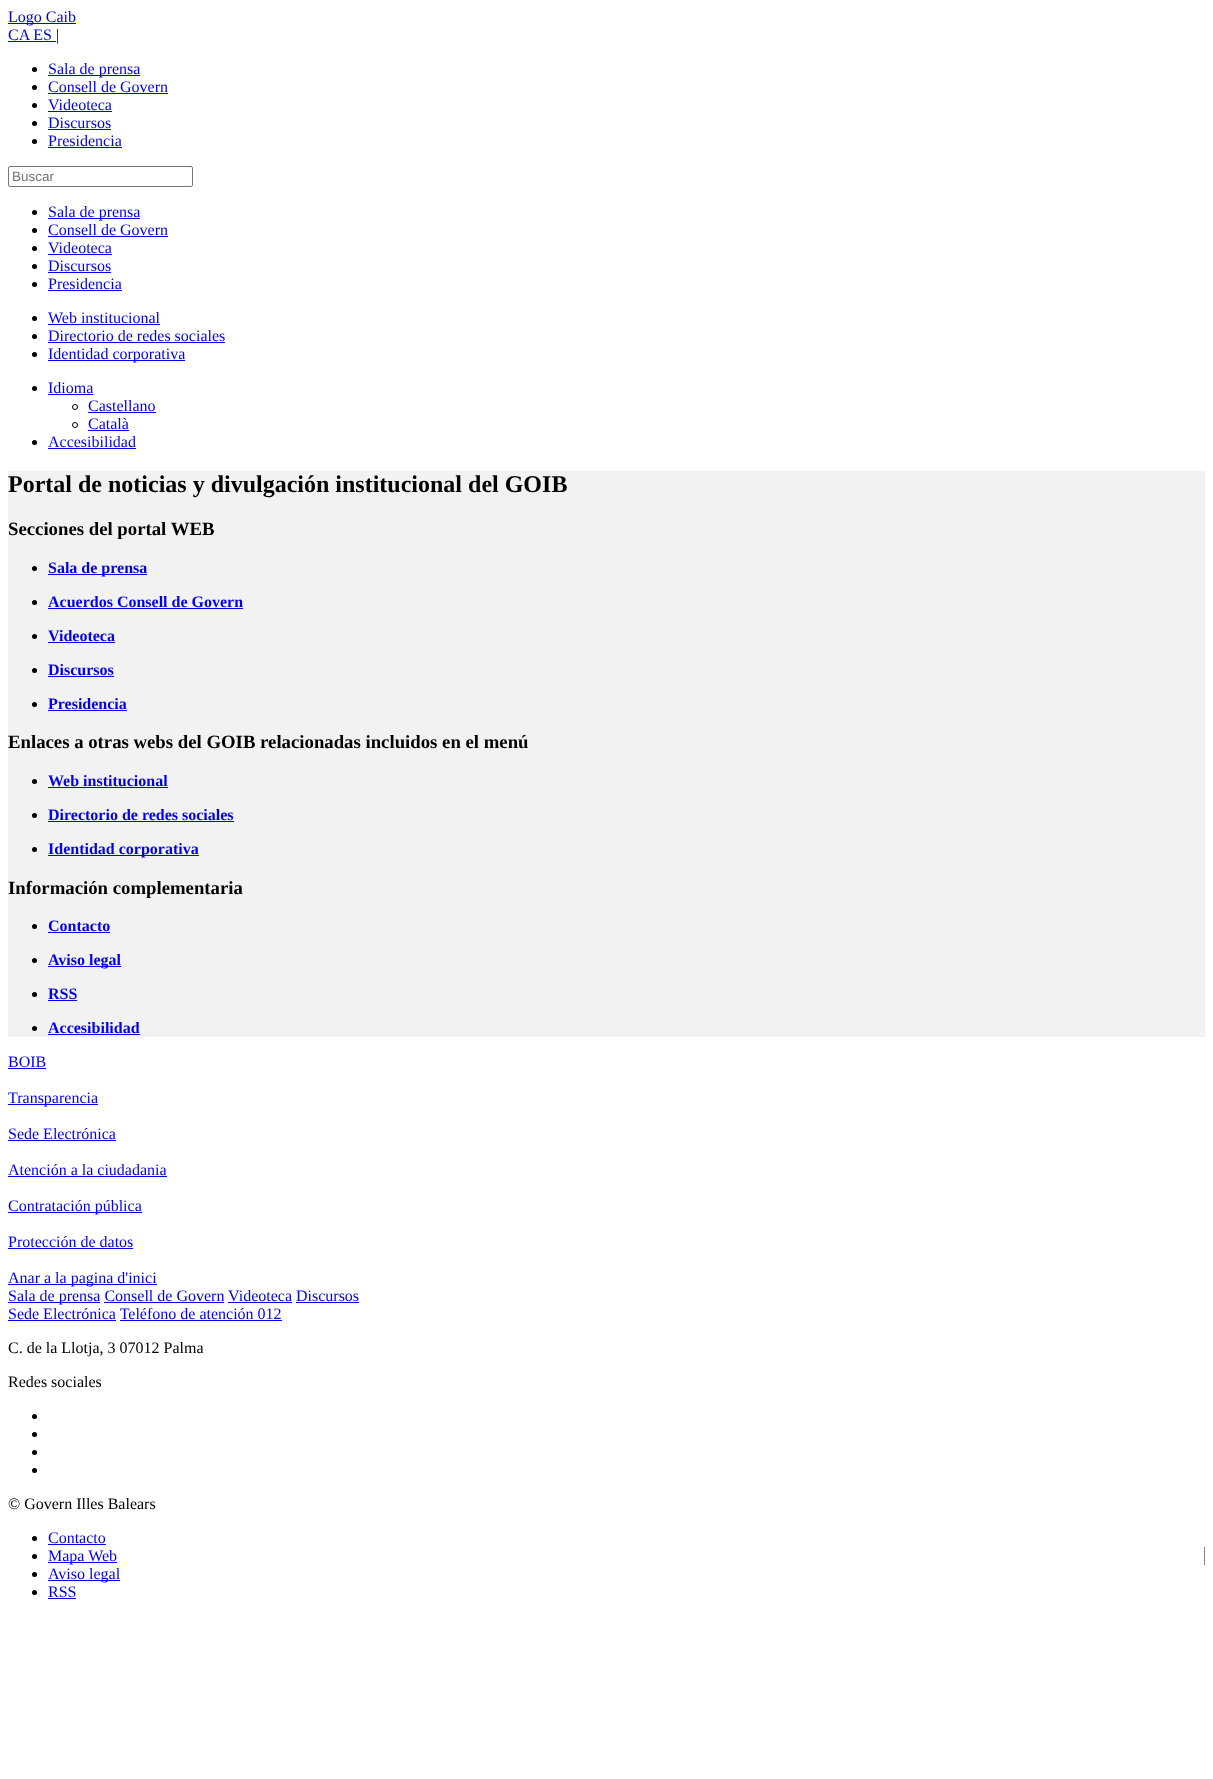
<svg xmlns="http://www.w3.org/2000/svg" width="1213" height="1779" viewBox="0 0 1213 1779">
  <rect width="100%" height="100%" fill="#fff"/>
  <path d="M8 23h68v1H8z" fill="#00e"/>
  <path d="M8 41h48v1H8z" fill="#00e"/>
  <circle cx="34.5" cy="69.5" r="2.5" fill="#000"/>
  <path d="M48 75h92v1H48z" fill="#00e"/>
  <circle cx="34.5" cy="87.5" r="2.5" fill="#000"/>
  <path d="M48 93h120v1H48z" fill="#00e"/>
  <circle cx="34.5" cy="105.5" r="2.5" fill="#000"/>
  <path d="M48 111h64v1H48z" fill="#00e"/>
  <circle cx="34.5" cy="123.5" r="2.5" fill="#000"/>
  <path d="M48 129h63v1H48z" fill="#00e"/>
  <circle cx="34.5" cy="141.5" r="2.5" fill="#000"/>
  <path d="M48 147h74v1H48z" fill="#00e"/>
  <rect x="8.5" y="166.5" width="184" height="20" rx="1.5" fill="none" stroke="#767676"/>
  <circle cx="34.5" cy="212.5" r="2.5" fill="#000"/>
  <path d="M48 218h92v1H48z" fill="#00e"/>
  <circle cx="34.5" cy="230.5" r="2.5" fill="#000"/>
  <path d="M48 236h120v1H48z" fill="#00e"/>
  <circle cx="34.5" cy="248.5" r="2.5" fill="#000"/>
  <path d="M48 254h64v1H48z" fill="#00e"/>
  <circle cx="34.5" cy="266.5" r="2.5" fill="#000"/>
  <path d="M48 272h63v1H48z" fill="#00e"/>
  <circle cx="34.5" cy="284.5" r="2.5" fill="#000"/>
  <path d="M48 290h74v1H48z" fill="#00e"/>
  <circle cx="34.5" cy="318.5" r="2.5" fill="#000"/>
  <path d="M48 324h112v1H48z" fill="#00e"/>
  <circle cx="34.5" cy="336.5" r="2.5" fill="#000"/>
  <path d="M48 342h177v1H48z" fill="#00e"/>
  <circle cx="34.5" cy="354.5" r="2.5" fill="#000"/>
  <path d="M48 360h137v1H48z" fill="#00e"/>
  <circle cx="34.5" cy="388.5" r="2.5" fill="#000"/>
  <path d="M48 394h45v1H48z" fill="#00e"/>
  <circle cx="75" cy="407" r="2.5" fill="none" stroke="#000"/>
  <path d="M88 412h68v1H88z" fill="#00e"/>
  <circle cx="75" cy="425" r="2.5" fill="none" stroke="#000"/>
  <path d="M88 430h41v1H88z" fill="#00e"/>
  <circle cx="34.5" cy="442.5" r="2.5" fill="#000"/>
  <path d="M48 448h88v1H48z" fill="#00e"/>
  <path d="M8 471h1197v566H8z" fill="#f2f2f2"/>
  <circle cx="34.5" cy="568.5" r="2.5" fill="#000"/>
  <path d="M48 574h99v1H48z" fill="#00e"/>
  <circle cx="34.5" cy="602.5" r="2.5" fill="#000"/>
  <path d="M48 608h195v1H48z" fill="#00e"/>
  <circle cx="34.5" cy="636.5" r="2.5" fill="#000"/>
  <path d="M48 642h67v1H48z" fill="#00e"/>
  <circle cx="34.5" cy="670.5" r="2.5" fill="#000"/>
  <path d="M48 676h66v1H48z" fill="#00e"/>
  <circle cx="34.5" cy="704.5" r="2.5" fill="#000"/>
  <path d="M48 710h79v1H48z" fill="#00e"/>
  <circle cx="34.5" cy="781.5" r="2.5" fill="#000"/>
  <path d="M48 787h120v1H48z" fill="#00e"/>
  <circle cx="34.5" cy="815.5" r="2.5" fill="#000"/>
  <path d="M48 821h186v1H48z" fill="#00e"/>
  <circle cx="34.5" cy="849.5" r="2.5" fill="#000"/>
  <path d="M48 855h151v1H48z" fill="#00e"/>
  <circle cx="34.5" cy="926.5" r="2.5" fill="#000"/>
  <path d="M48 932h62v1H48z" fill="#00e"/>
  <circle cx="34.5" cy="960.5" r="2.5" fill="#000"/>
  <path d="M48 966h73v1H48z" fill="#00e"/>
  <circle cx="34.5" cy="994.5" r="2.5" fill="#000"/>
  <path d="M48 1000h29v1H48z" fill="#00e"/>
  <circle cx="34.5" cy="1028.5" r="2.5" fill="#000"/>
  <path d="M48 1034h92v1H48z" fill="#00e"/>
  <path d="M8 1068h38v1H8z" fill="#00e"/>
  <path d="M8 1104h90v1H8z" fill="#00e"/>
  <path d="M8 1140h108v1H8z" fill="#00e"/>
  <path d="M8 1176h159v1H8z" fill="#00e"/>
  <path d="M8 1212h134v1H8z" fill="#00e"/>
  <path d="M8 1248h125v1H8z" fill="#00e"/>
  <path d="M8 1284h149v1H8z" fill="#00e"/>
  <path d="M8 1302h92v1H8z" fill="#00e"/>
  <path d="M104 1302h120v1H104z" fill="#00e"/>
  <path d="M228 1302h64v1H228z" fill="#00e"/>
  <path d="M296 1302h63v1H296z" fill="#00e"/>
  <path d="M8 1320h108v1H8z" fill="#00e"/>
  <path d="M120 1320h162v1H120z" fill="#00e"/>
  <circle cx="34.5" cy="1416.5" r="2.5" fill="#000"/>
  <circle cx="34.5" cy="1434.5" r="2.5" fill="#000"/>
  <circle cx="34.5" cy="1452.5" r="2.5" fill="#000"/>
  <circle cx="34.5" cy="1470.5" r="2.5" fill="#000"/>
  <circle cx="34.5" cy="1538.5" r="2.5" fill="#000"/>
  <path d="M48 1544h58v1H48z" fill="#00e"/>
  <path d="M1204 1547h1v18H1204z" fill="#888"/>
  <circle cx="34.5" cy="1556.5" r="2.5" fill="#000"/>
  <path d="M48 1562h69v1H48z" fill="#00e"/>
  <circle cx="34.5" cy="1574.5" r="2.5" fill="#000"/>
  <path d="M48 1580h72v1H48z" fill="#00e"/>
  <circle cx="34.5" cy="1592.5" r="2.5" fill="#000"/>
  <path d="M48 1598h28v1H48z" fill="#00e"/>
  <g font-family="Liberation Serif" font-size="16" fill="#00e">
    <text x="8" y="22">Logo Caib</text>
    <text x="8" y="40">CA ES</text>
  </g>
  <text x="56" y="40" font-family="Liberation Serif" font-size="16" fill="#000">|</text>
  <g font-family="Liberation Serif" font-size="16" fill="#00e">
    <text x="48" y="74">Sala de prensa</text>
    <text x="48" y="92">Consell de Govern</text>
    <text x="48" y="110">Videoteca</text>
    <text x="48" y="128">Discursos</text>
    <text x="48" y="146">Presidencia</text>
  </g>
  <text x="12" y="181" font-family="Liberation Sans" font-size="13.5" fill="#757575">Buscar</text>
  <g font-family="Liberation Serif" font-size="16" fill="#00e">
    <text x="48" y="217">Sala de prensa</text>
    <text x="48" y="235">Consell de Govern</text>
    <text x="48" y="253">Videoteca</text>
    <text x="48" y="271">Discursos</text>
    <text x="48" y="289">Presidencia</text>
    <text x="48" y="323">Web institucional</text>
    <text x="48" y="341">Directorio de redes sociales</text>
    <text x="48" y="359">Identidad corporativa</text>
    <text x="48" y="393">Idioma</text>
    <text x="88" y="411">Castellano</text>
    <text x="88" y="429">Català</text>
    <text x="48" y="447">Accesibilidad</text>
  </g>
  <text x="8" y="492" font-family="Liberation Serif" font-size="24" font-weight="bold" fill="#000">Portal de noticias y divulgación institucional del GOIB</text>
  <text x="8" y="535" font-family="Liberation Serif" font-size="18.75" font-weight="bold" fill="#000">Secciones del portal WEB</text>
  <g font-family="Liberation Serif" font-size="16" font-weight="bold" fill="#00e">
    <text x="48" y="573">Sala de prensa</text>
    <text x="48" y="607">Acuerdos Consell de Govern</text>
    <text x="48" y="641">Videoteca</text>
    <text x="48" y="675">Discursos</text>
    <text x="48" y="709">Presidencia</text>
  </g>
  <text x="8" y="748" font-family="Liberation Serif" font-size="18.75" font-weight="bold" fill="#000">Enlaces a otras webs del GOIB relacionadas incluidos en el menú</text>
  <g font-family="Liberation Serif" font-size="16" font-weight="bold" fill="#00e">
    <text x="48" y="786">Web institucional</text>
    <text x="48" y="820">Directorio de redes sociales</text>
    <text x="48" y="854">Identidad corporativa</text>
  </g>
  <text x="8" y="894" font-family="Liberation Serif" font-size="18.75" font-weight="bold" fill="#000">Información complementaria</text>
  <g font-family="Liberation Serif" font-size="16" font-weight="bold" fill="#00e">
    <text x="48" y="931">Contacto</text>
    <text x="48" y="965">Aviso legal</text>
    <text x="48" y="999">RSS</text>
    <text x="48" y="1033">Accesibilidad</text>
  </g>
  <g font-family="Liberation Serif" font-size="16" fill="#00e">
    <text x="8" y="1067">BOIB</text>
    <text x="8" y="1103">Transparencia</text>
    <text x="8" y="1139">Sede Electrónica</text>
    <text x="8" y="1175">Atención a la ciudadania</text>
    <text x="8" y="1211">Contratación pública</text>
    <text x="8" y="1247">Protección de datos</text>
    <text x="8" y="1283">Anar a la pagina d'inici</text>
    <text x="8" y="1301">Sala de prensa Consell de Govern Videoteca Discursos</text>
    <text x="8" y="1319">Sede Electrónica Teléfono de atención 012</text>
  </g>
  <g font-family="Liberation Serif" font-size="16" fill="#000">
    <text x="8" y="1353">C. de la Llotja, 3 07012 Palma</text>
    <text x="8" y="1387">Redes sociales</text>
    <text x="8" y="1509">© Govern Illes Balears</text>
  </g>
  <g font-family="Liberation Serif" font-size="16" fill="#00e">
    <text x="48" y="1543">Contacto</text>
    <text x="48" y="1561">Mapa Web</text>
    <text x="48" y="1579">Aviso legal</text>
    <text x="48" y="1597">RSS</text>
  </g>
</svg>
